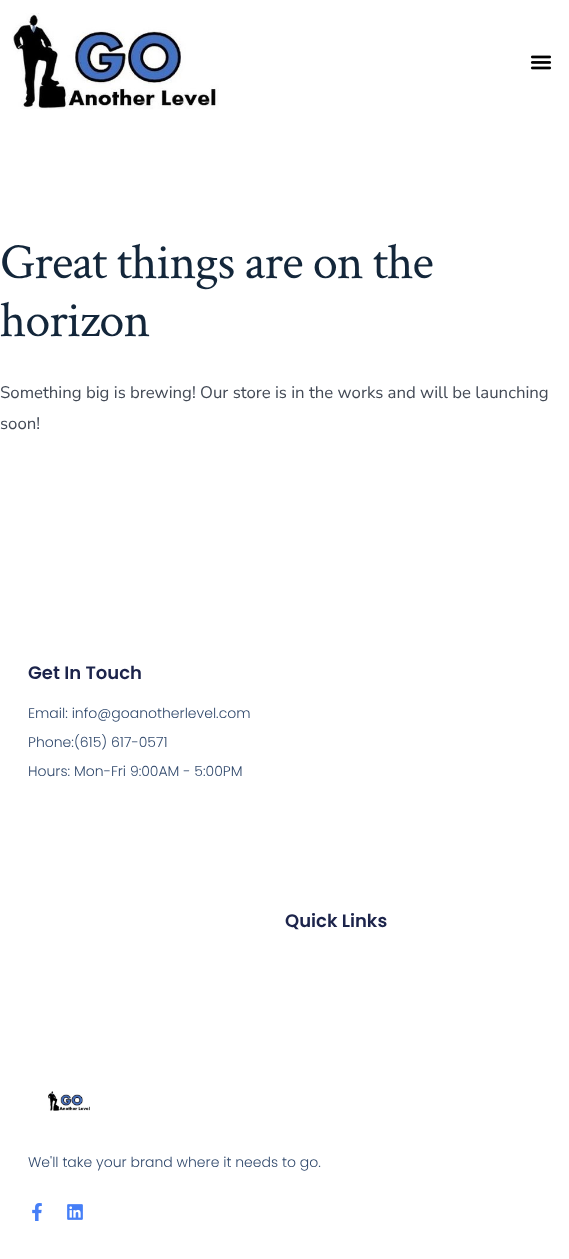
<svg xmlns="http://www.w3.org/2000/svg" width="569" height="1259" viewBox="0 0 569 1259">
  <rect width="100%" height="100%" fill="#fff"/>
  <image x="12" y="13" width="207" height="97" href="img/1.png"/>
  <image x="530" y="55" width="22" height="15" href="img/2.png"/>
  <image x="48" y="1091" width="42" height="20" href="img/3.png"/>
  <image x="32" y="1203" width="10" height="18" href="img/4.png"/>
  <image x="67" y="1204" width="16" height="16" href="img/5.png"/>
  <g font-family="Crimson Text" font-size="50.5" letter-spacing="-1" fill="#13263a">
    <text x="0" y="278">Great things are on the</text>
    <text x="0" y="336">horizon</text>
  </g>
  <g font-family="Nunito Sans" font-size="16.8" fill="#434a56">
    <text x="0" y="398">Something big is brewing! Our store is in the works and will be launching</text>
    <text x="0" y="429">soon!</text>
  </g>
  <text x="28" y="679" font-family="Poppins" font-size="18" font-weight="600" fill="#1c244b">Get In Touch</text>
  <g font-family="Poppins" font-size="14" font-weight="300" fill="#324a6d">
    <text x="28" y="718">Email: info@goanotherlevel.com</text>
    <text x="28" y="747">Phone:(615) 617-0571</text>
    <text x="28" y="776">Hours: Mon-Fri 9:00AM - 5:00PM</text>
  </g>
  <text x="285" y="927" font-family="Poppins" font-size="18" font-weight="600" fill="#1c244b">Quick Links</text>
  <text x="28" y="1167" font-family="Poppins" font-size="14" font-weight="300" fill="#324a6d">We'll take your brand where it needs to go.</text>
</svg>
